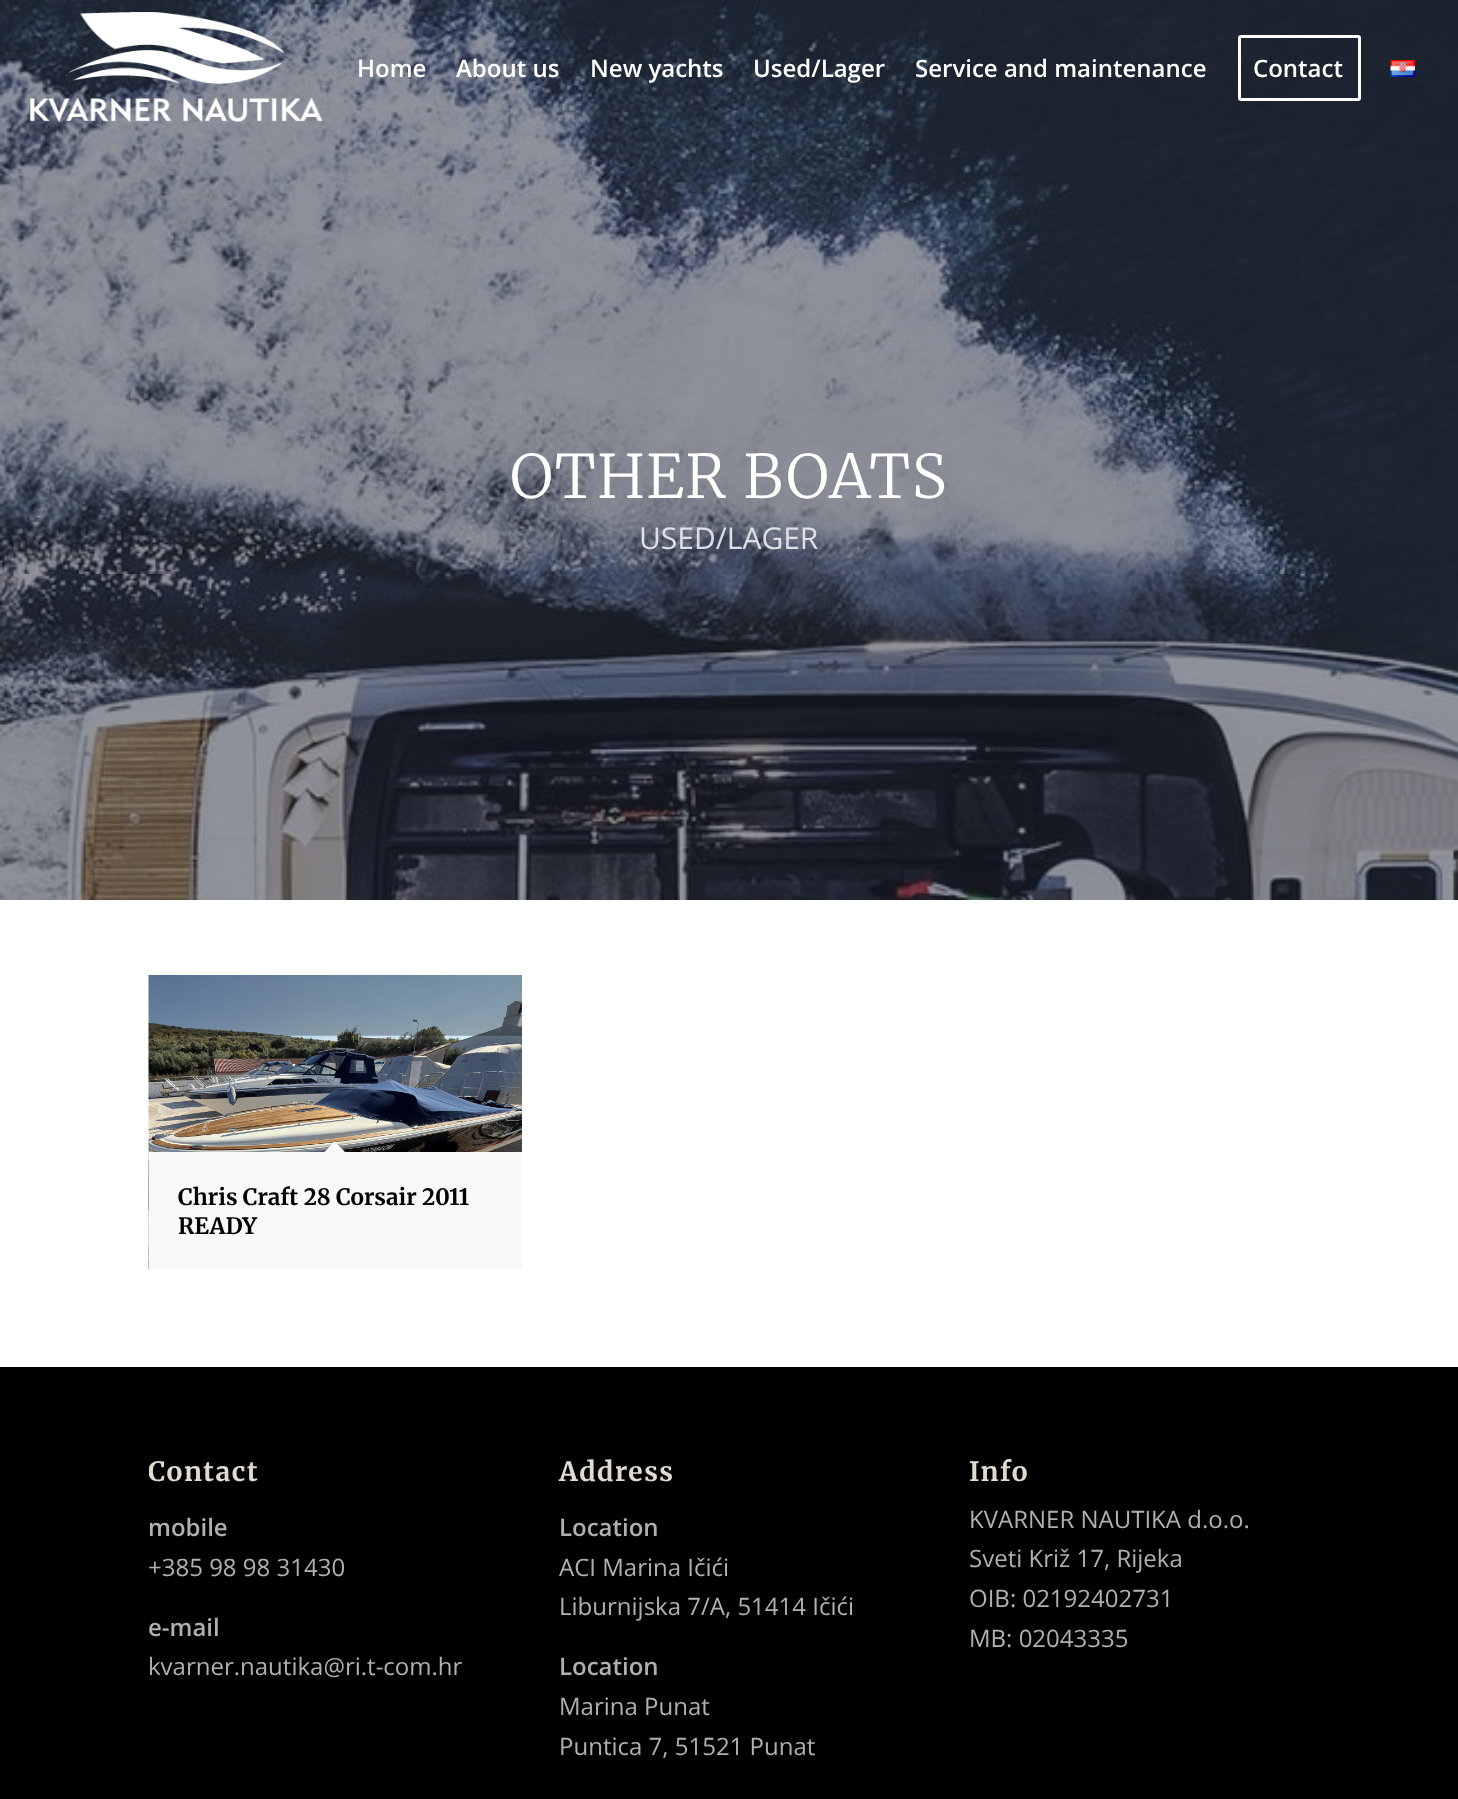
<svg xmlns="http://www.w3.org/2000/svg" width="1458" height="1799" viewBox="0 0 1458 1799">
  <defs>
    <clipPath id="clip1"><path d="M149 1436h340v271H149z"/></clipPath>
  </defs>
  <rect width="100%" height="100%" fill="#fff"/>
  <image x="0" y="0" width="1458" height="900" href="img/3.png"/>
  <image x="30" y="12" width="293" height="110" href="img/1.png"/>
  <rect x="1239.5" y="36.5" width="120" height="63" rx="1.5" fill="none" stroke="#fff" stroke-width="3"/>
  <image x="1390" y="60" width="25" height="17" href="img/2.png"/>
  <image x="148" y="975" width="374" height="294" href="img/4.png"/>
  <path d="M149 1152h373v117H149z" fill="#f8f8f8"/>
  <path d="M334.5 1141.5L345.5 1152.5L334.5 1163L324 1152.5Z" fill="#f8f8f8"/>
  <path d="M0 1367h1458v432H0z" fill="#000"/>
  <g font-family="Open Sans" font-size="24" font-weight="600" fill="#fff">
    <text x="357" y="77">Home</text>
    <text x="456" y="77">About us</text>
    <text x="590" y="77">New yachts</text>
    <text x="753" y="77">Used/Lager</text>
    <text x="915" y="77">Service and maintenance</text>
    <text x="1253" y="77">Contact</text>
  </g>
  <text x="510" y="498" font-family="Merriweather" font-size="60" font-weight="300" letter-spacing="1.5" fill="#fff">OTHER BOATS</text>
  <text x="639" y="549" font-family="Open Sans" font-size="30" fill="#dee0e3">USED/LAGER</text>
  <g font-family="Merriweather" font-size="22.5" font-weight="bold" fill="#000">
    <text x="178" y="1205">Chris Craft 28 Corsair 2011</text>
    <text x="178" y="1234">READY</text>
  </g>
  <g clip-path="url(#clip1)">
    <text x="148" y="1481" font-family="Merriweather" font-size="26.5" font-weight="bold" letter-spacing="1.5" fill="#e1dbcf">Contact</text>
  </g>
  <text x="148" y="1536" font-family="Open Sans" font-size="24" font-weight="600" fill="#b0b0b0">mobile</text>
  <text x="148" y="1576" font-family="Open Sans" font-size="24" fill="#b0b0b0">+385 98 98 31430</text>
  <text x="148" y="1636" font-family="Open Sans" font-size="24" font-weight="600" fill="#b0b0b0">e-mail</text>
  <text x="148" y="1675" font-family="Open Sans" font-size="24" fill="#b0b0b0">kvarner.nautika@ri.t-com.hr</text>
  <text x="559" y="1481" font-family="Merriweather" font-size="26.5" font-weight="bold" letter-spacing="1.5" fill="#e1dbcf">Address</text>
  <text x="559" y="1536" font-family="Open Sans" font-size="24" font-weight="600" fill="#b0b0b0">Location</text>
  <g font-family="Open Sans" font-size="24" fill="#b0b0b0">
    <text x="559" y="1576">ACI Marina Ičići</text>
    <text x="559" y="1615">Liburnijska 7/A, 51414 Ičići</text>
  </g>
  <text x="559" y="1675" font-family="Open Sans" font-size="24" font-weight="600" fill="#b0b0b0">Location</text>
  <g font-family="Open Sans" font-size="24" fill="#b0b0b0">
    <text x="559" y="1715">Marina Punat</text>
    <text x="559" y="1755">Puntica 7, 51521 Punat</text>
  </g>
  <text x="969" y="1481" font-family="Merriweather" font-size="26.5" font-weight="bold" letter-spacing="1.5" fill="#e1dbcf">Info</text>
  <g font-family="Open Sans" font-size="24" fill="#b0b0b0">
    <text x="969" y="1528">KVARNER NAUTIKA d.o.o.</text>
    <text x="969" y="1567">Sveti Križ 17, Rijeka</text>
    <text x="969" y="1607">OIB: 02192402731</text>
    <text x="969" y="1647">MB: 02043335</text>
  </g>
</svg>
